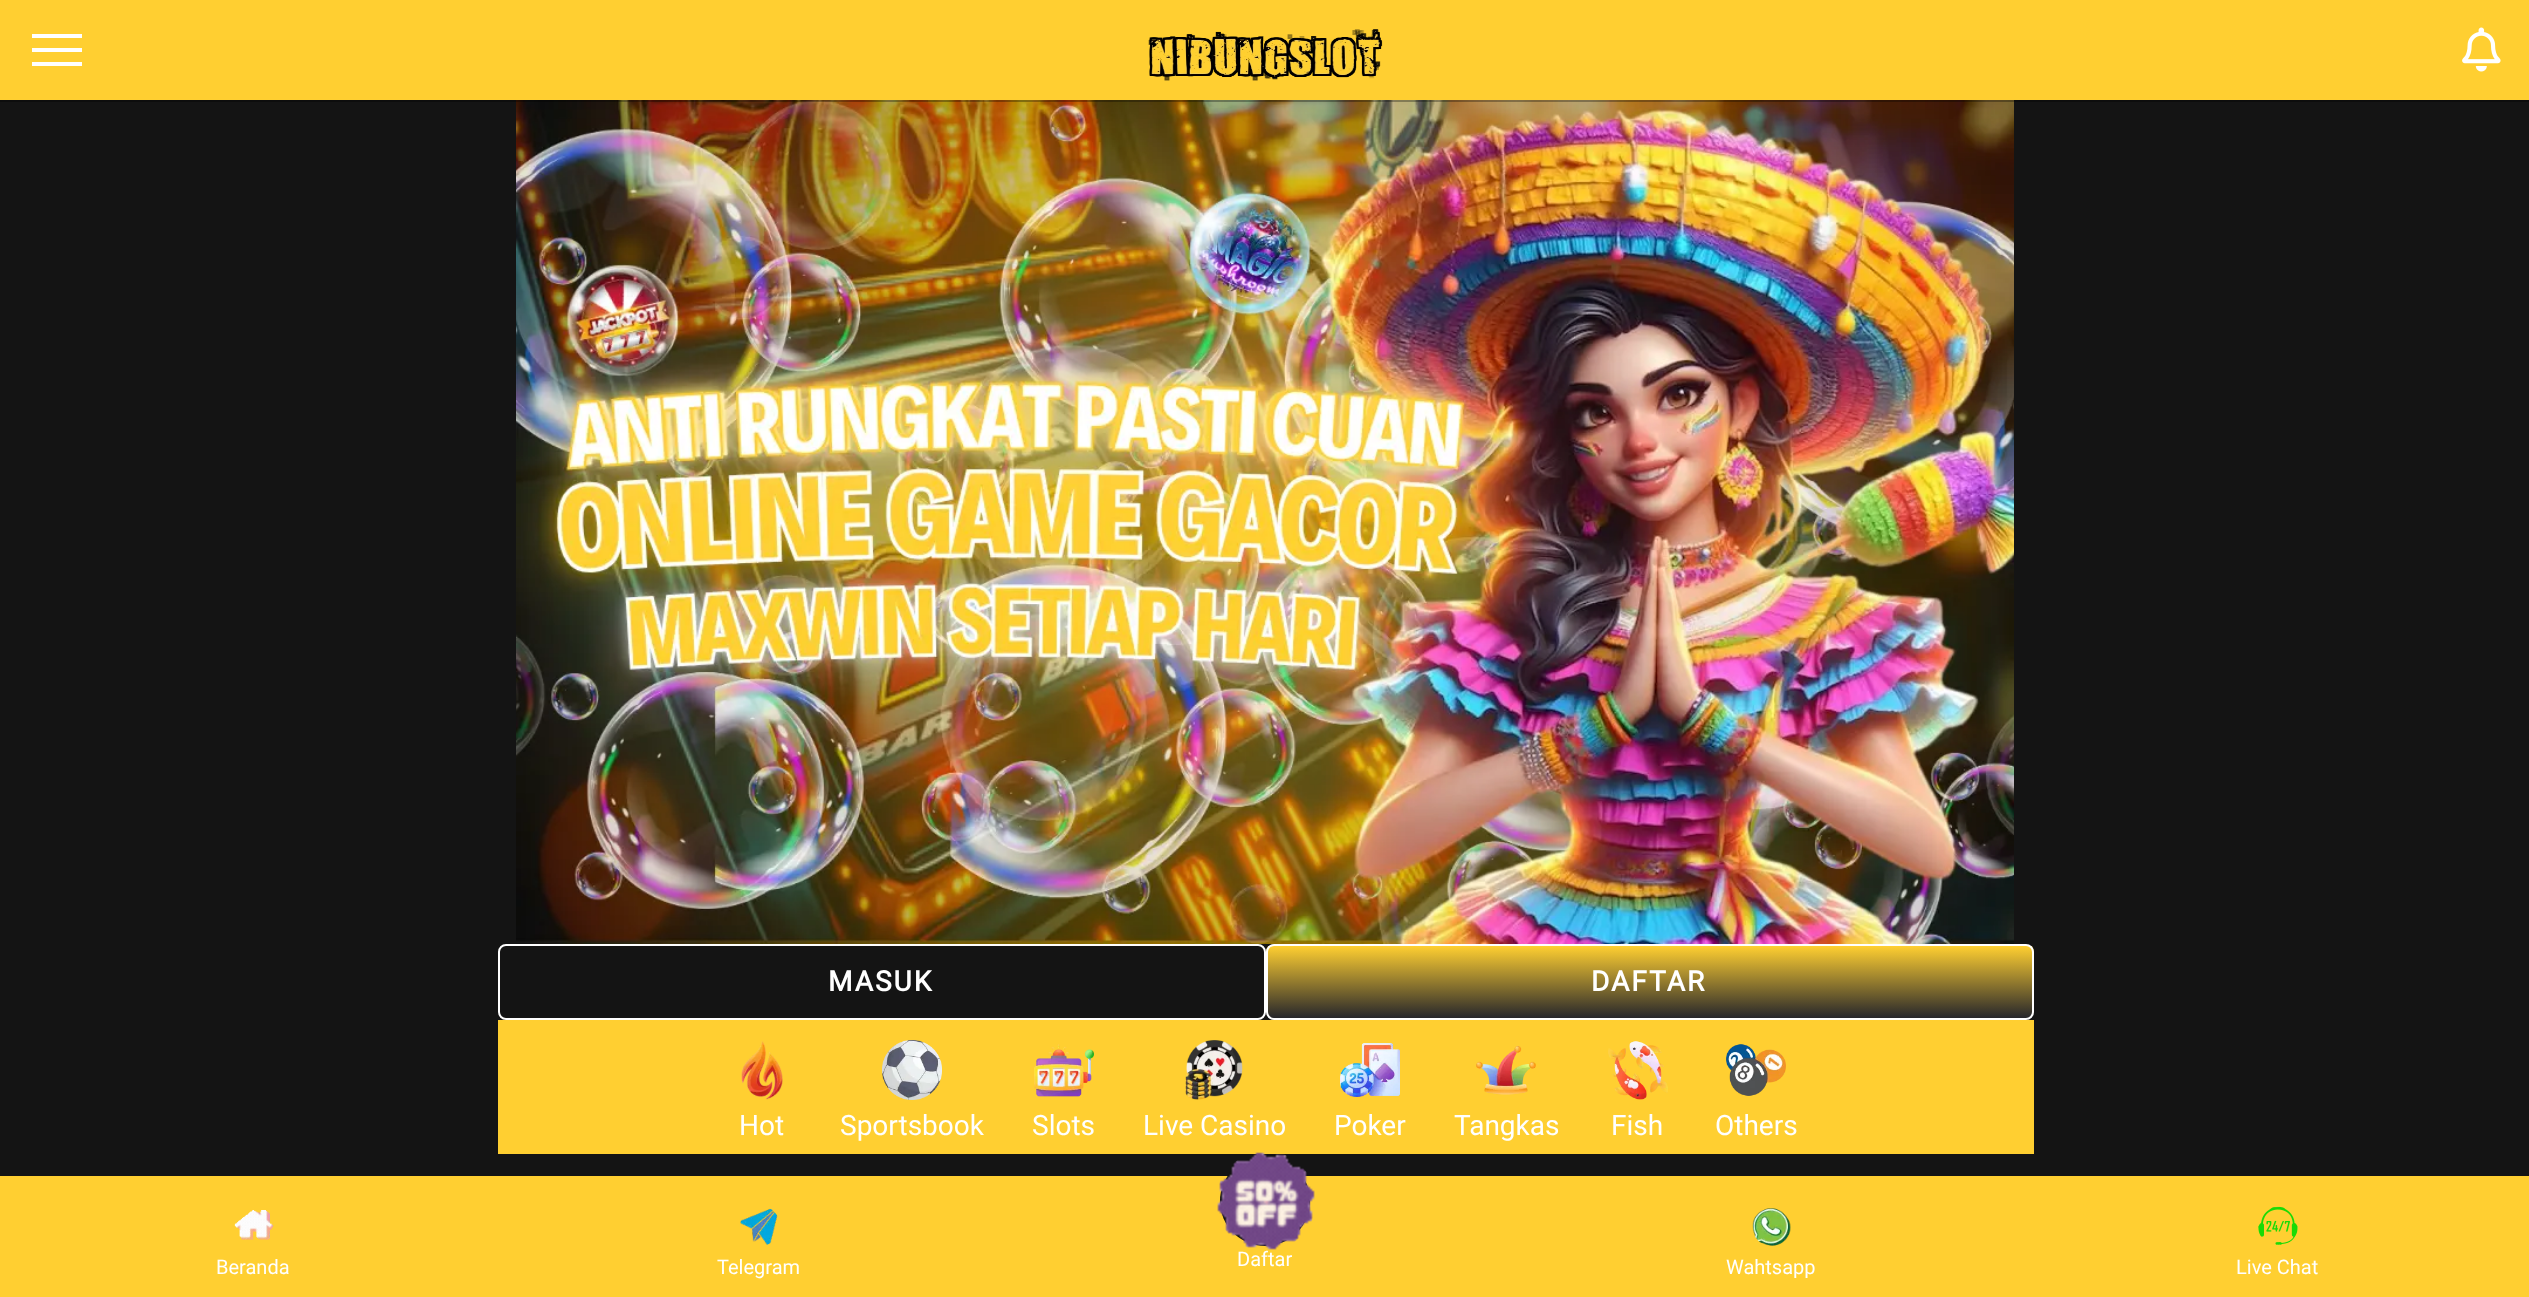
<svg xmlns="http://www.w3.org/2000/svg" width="2529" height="1297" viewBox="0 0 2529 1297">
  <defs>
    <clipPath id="clip1"><rect x="1266" y="944" width="768" height="76" rx="8"/></clipPath>
    <linearGradient id="g1" gradientUnits="userSpaceOnUse" x1="1650" y1="946" x2="1650" y2="1018"><stop offset="0" stop-color="#ffcf31"/><stop offset="1" stop-color="#26262b"/></linearGradient>
  </defs>
  <rect width="100%" height="100%" fill="#141414"/>
  <image x="516" y="100" width="1498" height="844" href="img/3.png"/>
  <path d="M0 100h2529v2H0z" fill="#0000004d"/>
  <path d="M0 0h2529v100H0z" fill="#ffcf31"/>
  <path d="M32 48h50v4H32z" fill="#fff"/>
  <path d="M32 34h50v4H32z" fill="#fff"/>
  <path d="M32 62h50v4H32z" fill="#fff"/>
  <image x="1148" y="29" width="235" height="52" href="img/1.png"/>
  <image x="2462" y="27" width="39" height="45" href="img/2.png"/>
  <rect x="499" y="945" width="766" height="74" rx="7" fill="none" stroke="#fff" stroke-width="2"/>
  <g clip-path="url(#clip1)">
    <path d="M1266 946h768v72H1266z" fill="url(#g1)"/>
  </g>
  <rect x="1267" y="945" width="766" height="74" rx="7" fill="none" stroke="#fff" stroke-width="2"/>
  <path d="M498 1020h1536v134H498z" fill="#ffcf31"/>
  <image x="741" y="1041" width="42" height="59" href="img/4.png"/>
  <image x="882" y="1040" width="60" height="60" href="img/5.png"/>
  <image x="1034" y="1044" width="60" height="53" href="img/6.png"/>
  <image x="1185" y="1040" width="58" height="60" href="img/7.png"/>
  <image x="1340" y="1043" width="60" height="54" href="img/8.png"/>
  <image x="1476" y="1046" width="60" height="49" href="img/9.png"/>
  <image x="1608" y="1041" width="60" height="59" href="img/10.png"/>
  <image x="1726" y="1044" width="60" height="52" href="img/11.png"/>
  <path d="M0 1176h2529v121H0z" fill="#ffcf31"/>
  <image x="234" y="1210" width="40" height="30" href="img/12.png"/>
  <image x="740" y="1208" width="38" height="37" href="img/13.png"/>
  <circle cx="1265" cy="1201" r="45" fill="#141414"/>
  <image x="1217" y="1152" width="98" height="98" href="img/14.png"/>
  <image x="1752" y="1208" width="39" height="38" href="img/15.png"/>
  <image x="2258" y="1206" width="40" height="39" href="img/16.png"/>
  <g font-family="Roboto" font-size="28" font-weight="bold" letter-spacing="2" fill="#fff">
    <text x="828" y="991">MASUK</text>
    <text x="1591" y="991">DAFTAR</text>
  </g>
  <g font-family="Roboto" font-size="28" fill="#fff">
    <text x="739" y="1135">Hot</text>
    <text x="840" y="1135">Sportsbook</text>
    <text x="1032" y="1135">Slots</text>
    <text x="1143" y="1135">Live Casino</text>
    <text x="1334" y="1135">Poker</text>
    <text x="1454" y="1135">Tangkas</text>
    <text x="1611" y="1135">Fish</text>
    <text x="1715" y="1135">Others</text>
  </g>
  <g font-family="Roboto" font-size="20" fill="#fff">
    <text x="216" y="1274">Beranda</text>
    <text x="717" y="1274">Telegram</text>
    <text x="1237" y="1266">Daftar</text>
    <text x="1726" y="1274">Wahtsapp</text>
    <text x="2236" y="1274">Live Chat</text>
  </g>
</svg>
